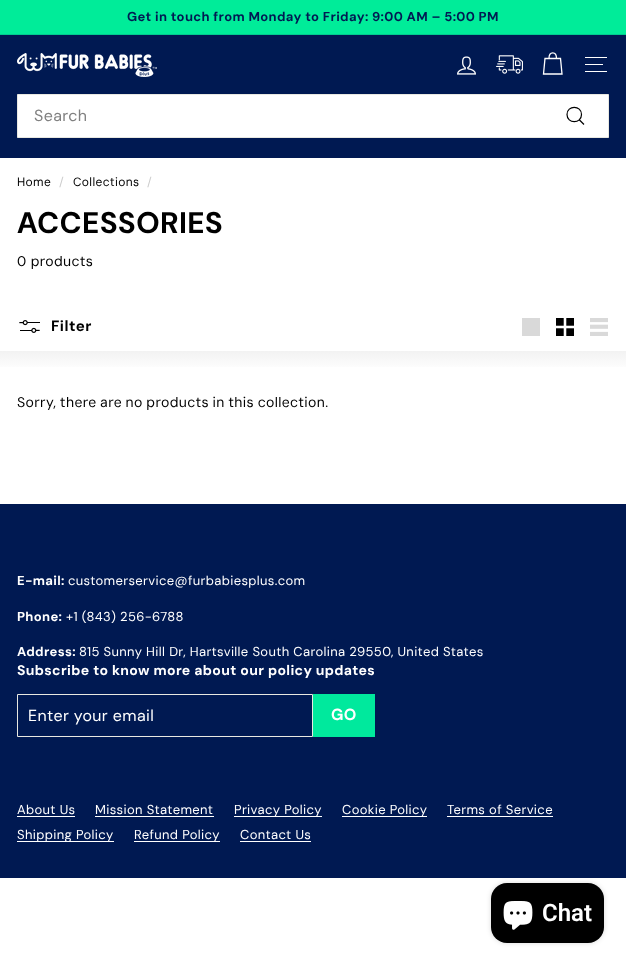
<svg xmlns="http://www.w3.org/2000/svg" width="626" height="964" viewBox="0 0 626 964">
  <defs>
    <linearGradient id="g1" gradientUnits="userSpaceOnUse" x1="313" y1="351" x2="313" y2="371"><stop offset="0" stop-color="#f2f2f2"/><stop offset="1" stop-color="#fff"/></linearGradient>
  </defs>
  <rect width="100%" height="100%" fill="#fff"/>
  <path d="M0 0h626v34H0z" fill="#00ec99"/>
  <path d="M0 34h626v1H0z" fill="#00cc8e"/>
  <path d="M0 35h626v123H0z" fill="#001952"/>
  <image x="17" y="53" width="140" height="24" href="img/1.png"/>
  <image x="457" y="56" width="19" height="19" href="img/2.png"/>
  <image x="496" y="55" width="27" height="19" href="img/3.png"/>
  <path d="M549 58.5C549 51 556.5 51 556.5 58.5M545 58.5H560.5L562 74H543.5Z" fill="none" stroke="#fff" stroke-width="1.3"/>
  <path d="M585 57h22v1H585z" fill="#fff"/>
  <path d="M585 64h18v1H585z" fill="#fff"/>
  <path d="M585 71h22v1H585z" fill="#fff"/>
  <path d="M17.5 94.5h591v43H17.5z" fill="#fff" stroke="#e8e8e1"/>
  <path d="M581.5 114.5C581.5 124 567 124 567 114.5C567 105 581.5 105 581.5 114.5ZM584 124.5L579.5 120" fill="none" stroke="#000" stroke-width="1.2"/>
  <image x="19" y="320" width="21" height="13" href="img/4.png"/>
  <path d="M522 318h18v18H522z" fill="#d9d9d9"/>
  <image x="556" y="318" width="18" height="18" href="img/5.png"/>
  <image x="590" y="318" width="18" height="18" href="img/6.png"/>
  <path d="M0 351h626v16H0z" fill="url(#g1)"/>
  <path d="M0 504h626v374H0z" fill="#001952"/>
  <path d="M17.5 694.5h295v42H17.5z" fill="none" stroke="#e8e8e1"/>
  <path d="M313 694h62v43H313z" fill="#00e99d"/>
  <path d="M17 816h58v1H17z" fill="#fff"/>
  <path d="M95 816h119v1H95z" fill="#fff"/>
  <path d="M234 816h88v1H234z" fill="#fff"/>
  <path d="M342 816h85v1H342z" fill="#fff"/>
  <path d="M447 816h106v1H447z" fill="#fff"/>
  <path d="M17 841h97v1H17z" fill="#fff"/>
  <path d="M134 841h86v1H134z" fill="#fff"/>
  <path d="M240 841h71v1H240z" fill="#fff"/>
  <rect x="491" y="883" width="113" height="60" rx="16" fill="#00000026" filter="blur(2.5px)"/>
  <rect x="491" y="883" width="113" height="60" rx="16" fill="#000"/>
  <image x="503" y="901" width="30" height="29" href="img/7.png"/>
  <text x="127" y="21" font-family="'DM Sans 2'" font-size="13" font-weight="bold" letter-spacing="0.35" fill="#001952">Get in touch from Monday to Friday: 9:00 AM – 5:00 PM</text>
  <text x="34" y="121" font-family="'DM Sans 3'" font-size="16" letter-spacing="0.4" fill="#808080">Search</text>
  <text x="17" y="186" font-family="DM Sans" font-size="12" letter-spacing="0.35" fill="#000">Home</text>
  <text x="59" y="186" font-family="DM Sans" font-size="12" letter-spacing="0.35" fill="#ccc">/</text>
  <text x="73" y="186" font-family="DM Sans" font-size="12" letter-spacing="0.35" fill="#000">Collections</text>
  <text x="147" y="186" font-family="DM Sans" font-size="12" letter-spacing="0.35" fill="#ccc">/</text>
  <text x="17" y="233" font-family="DM Sans" font-size="29.75" font-weight="bold" letter-spacing="0.75" fill="#000">ACCESSORIES</text>
  <text x="17" y="266" font-family="DM Sans" font-size="14" letter-spacing="0.35" fill="#000">0 products</text>
  <text x="51" y="331" font-family="'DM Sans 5'" font-size="15" font-weight="bold" letter-spacing="0.5" fill="#000">Filter</text>
  <text x="17" y="407" word-spacing="-0.5" font-family="DM Sans" font-size="14" letter-spacing="0.35" fill="#000">Sorry, there are no products in this collection.</text>
  <text x="17" y="585" font-family="'DM Sans 2'" font-size="13" font-weight="bold" letter-spacing="0.35" fill="#fff">E-mail:</text>
  <text x="68" y="585" font-family="'DM Sans 2'" font-size="13" letter-spacing="0.35" fill="#fff">customerservice@furbabiesplus.com</text>
  <text x="17" y="621" font-family="'DM Sans 2'" font-size="13" font-weight="bold" letter-spacing="0.35" fill="#fff">Phone:</text>
  <text x="66" y="621" font-family="'DM Sans 2'" font-size="13" letter-spacing="0.35" fill="#fff">+1 (843) 256-6788</text>
  <text x="17" y="656" font-family="'DM Sans 2'" font-size="13" font-weight="bold" letter-spacing="0.35" fill="#fff">Address:</text>
  <text x="79" y="656" font-family="'DM Sans 2'" font-size="13" letter-spacing="0.35" fill="#fff">815 Sunny Hill Dr, Hartsville South Carolina 29550, United States</text>
  <text x="17" y="675" font-family="'DM Sans 3'" font-size="14" font-weight="bold" letter-spacing="0.35" fill="#fff">Subscribe to know more about our policy updates</text>
  <text x="28" y="721" font-family="'DM Sans 3'" font-size="16" letter-spacing="0.4" fill="#fff">Enter your email</text>
  <text x="331" y="720" font-family="'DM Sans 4'" font-size="16" font-weight="bold" letter-spacing="0.4" fill="#fff">GO</text>
  <g font-family="'DM Sans 2'" font-size="13" letter-spacing="0.35" fill="#fff">
    <text x="17" y="814">About Us</text>
    <text x="95" y="814">Mission Statement</text>
    <text x="234" y="814">Privacy Policy</text>
    <text x="342" y="814">Cookie Policy</text>
    <text x="447" y="814">Terms of Service</text>
    <text x="17" y="839">Shipping Policy</text>
    <text x="134" y="839">Refund Policy</text>
    <text x="240" y="839">Contact Us</text>
  </g>
  <text x="542" y="921" font-family="Roboto" font-size="24" font-weight="600" fill="#fff">Chat</text>
</svg>
